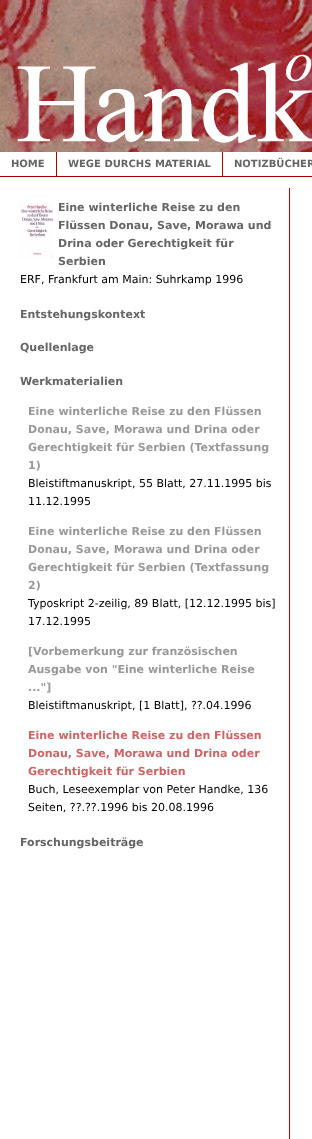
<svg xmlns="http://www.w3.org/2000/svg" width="312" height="1139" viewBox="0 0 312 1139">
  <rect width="100%" height="100%" fill="#fff"/>
  <image x="0" y="0" width="312" height="152" href="img/1.png"/>
  <image x="17" y="54" width="295" height="89" href="img/2.png"/>
  <path d="M289 188h1v951H289z" fill="#af0000"/>
  <path d="M0 176h312v1H0z" fill="#af0000"/>
  <path d="M56 152h1v24H56z" fill="#af0000"/>
  <path d="M222 152h1v24H222z" fill="#af0000"/>
  <image x="20" y="203" width="33" height="55" href="img/3.png"/>
  <g font-family="DejaVu Sans" font-size="10" font-weight="bold" fill="#666">
    <text x="11" y="167">HOME</text>
    <text x="68" y="167">WEGE DURCHS MATERIAL</text>
    <text x="234" y="167">NOTIZBÜCHER</text>
  </g>
  <g font-family="DejaVu Sans" font-size="11" font-weight="bold" fill="#666">
    <text x="58" y="211">Eine winterliche Reise zu den</text>
    <text x="58" y="229">Flüssen Donau, Save, Morawa und</text>
    <text x="58" y="247">Drina oder Gerechtigkeit für</text>
    <text x="58" y="265">Serbien</text>
  </g>
  <text x="20" y="283" font-family="DejaVu Sans" font-size="11" fill="#000">ERF, Frankfurt am Main: Suhrkamp 1996</text>
  <g font-family="DejaVu Sans" font-size="11" font-weight="bold" fill="#666">
    <text x="20" y="318">Entstehungskontext</text>
    <text x="20" y="351">Quellenlage</text>
    <text x="20" y="385">Werkmaterialien</text>
  </g>
  <g font-family="DejaVu Sans" font-size="11" font-weight="bold" fill="#999">
    <text x="28" y="415">Eine winterliche Reise zu den Flüssen</text>
    <text x="28" y="433">Donau, Save, Morawa und Drina oder</text>
    <text x="28" y="451">Gerechtigkeit für Serbien (Textfassung</text>
    <text x="28" y="469">1)</text>
  </g>
  <g font-family="DejaVu Sans" font-size="11" fill="#000">
    <text x="28" y="487">Bleistiftmanuskript, 55 Blatt, 27.11.1995 bis</text>
    <text x="28" y="505">11.12.1995</text>
  </g>
  <g font-family="DejaVu Sans" font-size="11" font-weight="bold" fill="#999">
    <text x="28" y="535">Eine winterliche Reise zu den Flüssen</text>
    <text x="28" y="553">Donau, Save, Morawa und Drina oder</text>
    <text x="28" y="571">Gerechtigkeit für Serbien (Textfassung</text>
    <text x="28" y="589">2)</text>
  </g>
  <g font-family="DejaVu Sans" font-size="11" fill="#000">
    <text x="28" y="607">Typoskript 2-zeilig, 89 Blatt, [12.12.1995 bis]</text>
    <text x="28" y="625">17.12.1995</text>
  </g>
  <g font-family="DejaVu Sans" font-size="11" font-weight="bold" fill="#999">
    <text x="28" y="655">[Vorbemerkung zur französischen</text>
    <text x="28" y="673">Ausgabe von "Eine winterliche Reise</text>
    <text x="28" y="691">..."]</text>
  </g>
  <text x="28" y="709" font-family="DejaVu Sans" font-size="11" fill="#000">Bleistiftmanuskript, [1 Blatt], ??.04.1996</text>
  <g font-family="DejaVu Sans" font-size="11" font-weight="bold" fill="#c66">
    <text x="28" y="739">Eine winterliche Reise zu den Flüssen</text>
    <text x="28" y="757">Donau, Save, Morawa und Drina oder</text>
    <text x="28" y="775">Gerechtigkeit für Serbien</text>
  </g>
  <g font-family="DejaVu Sans" font-size="11" fill="#000">
    <text x="28" y="793">Buch, Leseexemplar von Peter Handke, 136</text>
    <text x="28" y="811">Seiten, ??.??.1996 bis 20.08.1996</text>
  </g>
  <text x="20" y="846" font-family="DejaVu Sans" font-size="11" font-weight="bold" fill="#666">Forschungsbeiträge</text>
</svg>
